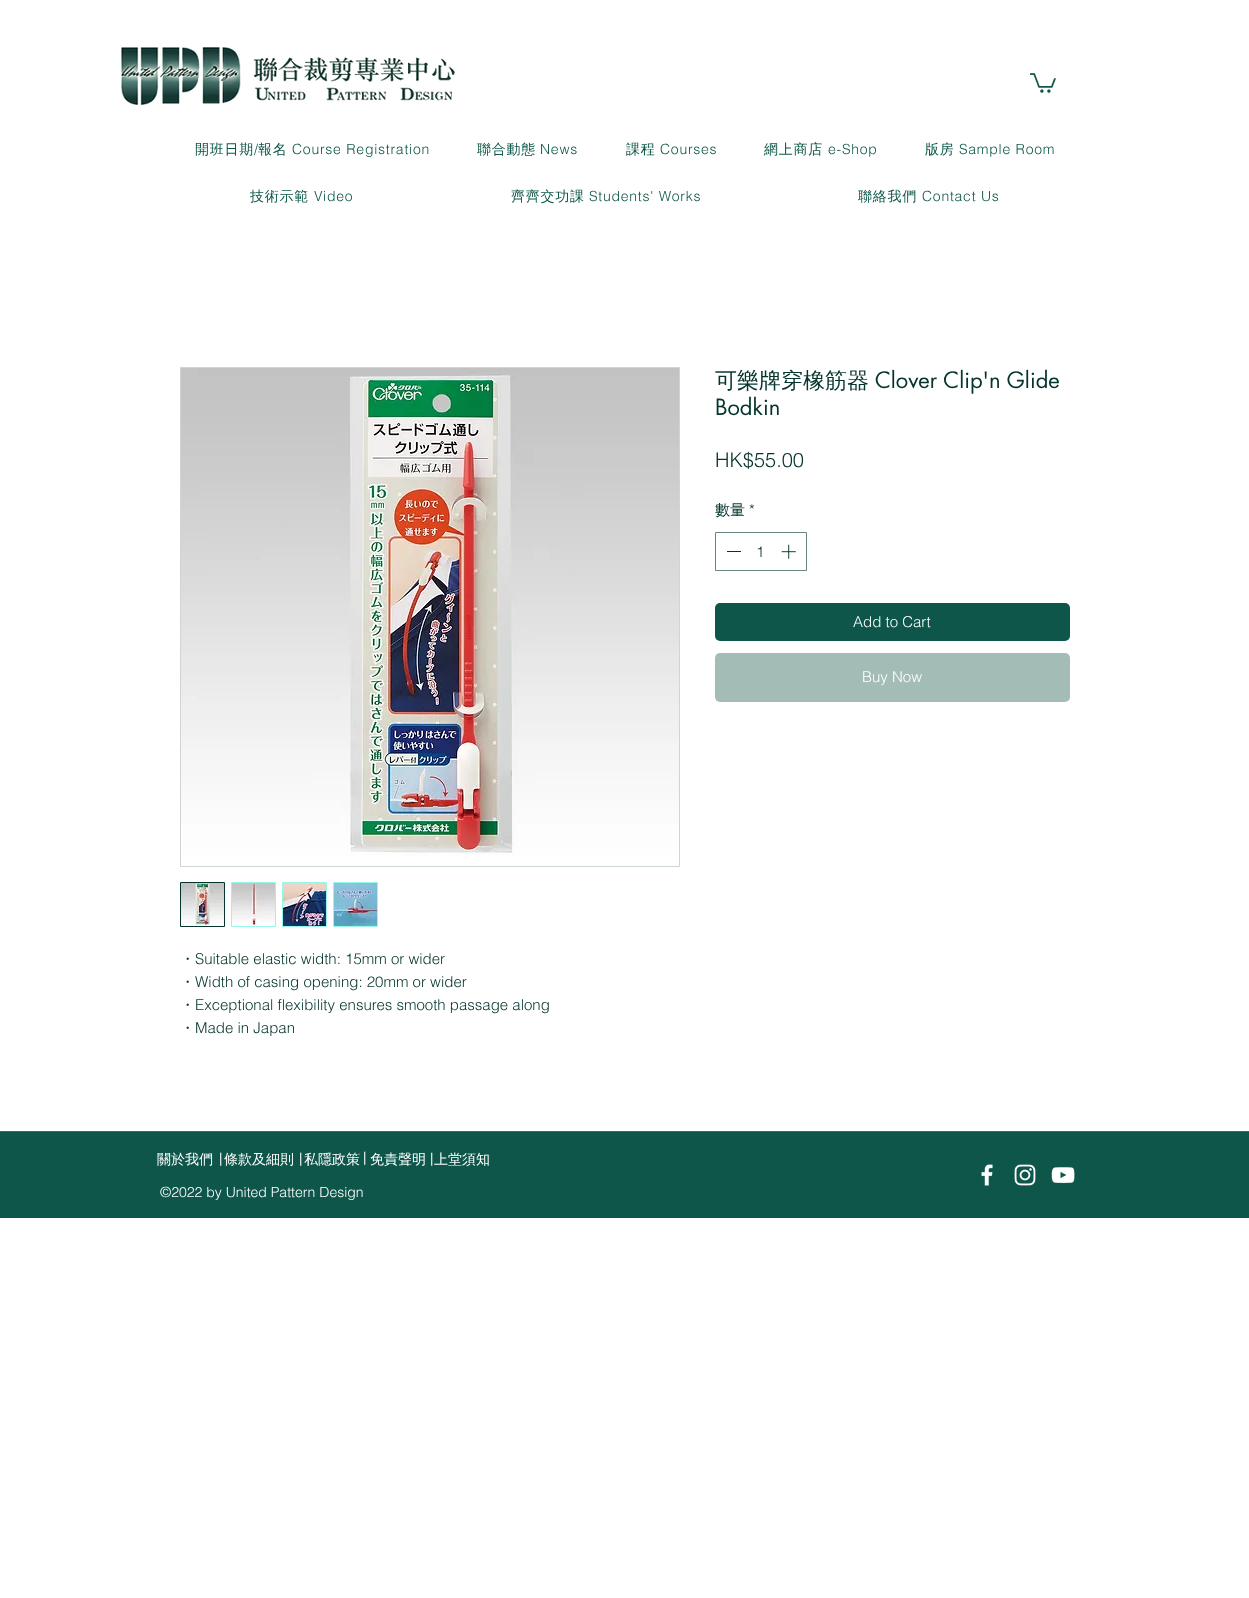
<svg xmlns="http://www.w3.org/2000/svg" width="1249" height="1598" viewBox="0 0 1249 1598">
  <rect width="100%" height="100%" fill="#fff"/>
  <image x="121" y="47" width="334" height="58" href="img/1.png"/>
  <image x="1030" y="73" width="26" height="20" href="img/2.png"/>
  <path d="M715.5 532.5h91v38H715.5z" fill="none" stroke="#688581"/>
  <path d="M727 551h14v1H727z" fill="#04342d"/>
  <image x="781" y="544" width="15" height="15" href="img/3.png"/>
  <rect x="715" y="603" width="355" height="38" rx="5" fill="#0d5649"/>
  <rect x="715" y="653" width="355" height="49" rx="5" fill="#a3bcb6"/>
  <path d="M180.5 367.5h499v499H180.5z" fill="none" stroke="#cdd6d5"/>
  <image x="181" y="368" width="498" height="488" href="img/4.png"/>
  <path d="M180.5 882.5h44v44H180.5z" fill="none" stroke="#04342d"/>
  <image x="181" y="883" width="43" height="43" href="img/5.png"/>
  <path d="M231.5 882.5h44v44H231.5z" fill="none" stroke="#96f7e9"/>
  <image x="232" y="883" width="43" height="43" href="img/6.png"/>
  <path d="M282.5 882.5h44v44H282.5z" fill="none" stroke="#96f7e9"/>
  <image x="283" y="883" width="43" height="43" href="img/7.png"/>
  <path d="M333.5 882.5h44v44H333.5z" fill="none" stroke="#96f7e9"/>
  <image x="334" y="883" width="43" height="43" href="img/8.png"/>
  <path d="M0 1132h1249v86H0z" fill="#0d5649"/>
  <path d="M0 1131h1249v1H0z" fill="#316f64"/>
  <image x="981" y="1164" width="12" height="22" href="img/9.png"/>
  <image x="1014" y="1164" width="22" height="22" href="img/10.png"/>
  <image x="1051" y="1167" width="24" height="17" href="img/11.png"/>
  <text x="195" y="154" font-family="WenQuanYi Zen Hei" font-size="14" font-weight="500" letter-spacing="0.75" fill="#0d5649">開班日期</text>
  <text x="254" y="154" font-family="helvetica" font-size="14" font-weight="300" letter-spacing="0.75" fill="#0d5649">/</text>
  <text x="258" y="154" font-family="WenQuanYi Zen Hei" font-size="14" font-weight="500" letter-spacing="0.75" fill="#0d5649">報名</text>
  <text x="292" y="154" font-family="helvetica" font-size="14" font-weight="300" letter-spacing="0.75" fill="#0d5649">Course Registration</text>
  <text x="477" y="154" font-family="WenQuanYi Zen Hei" font-size="14" font-weight="500" letter-spacing="0.75" fill="#0d5649">聯合動態</text>
  <text x="540" y="154" font-family="helvetica" font-size="14" font-weight="300" letter-spacing="0.75" fill="#0d5649">News</text>
  <text x="626" y="154" font-family="WenQuanYi Zen Hei" font-size="14" font-weight="500" letter-spacing="0.75" fill="#0d5649">課程</text>
  <text x="660" y="154" font-family="helvetica" font-size="14" font-weight="300" letter-spacing="0.75" fill="#0d5649">Courses</text>
  <text x="764" y="154" font-family="WenQuanYi Zen Hei" font-size="14" font-weight="500" letter-spacing="0.75" fill="#0d5649">網上商店</text>
  <text x="828" y="154" font-family="helvetica" font-size="14" font-weight="300" letter-spacing="0.75" fill="#0d5649">e-Shop</text>
  <text x="925" y="154" font-family="WenQuanYi Zen Hei" font-size="14" font-weight="500" letter-spacing="0.75" fill="#0d5649">版房</text>
  <text x="959" y="154" font-family="helvetica" font-size="14" font-weight="300" letter-spacing="0.75" fill="#0d5649">Sample Room</text>
  <text x="250" y="201" font-family="WenQuanYi Zen Hei" font-size="14" font-weight="500" letter-spacing="0.75" fill="#0d5649">技術示範</text>
  <text x="314" y="201" font-family="helvetica" font-size="14" font-weight="300" letter-spacing="0.75" fill="#0d5649">Video</text>
  <text x="511" y="201" font-family="WenQuanYi Zen Hei" font-size="14" font-weight="500" letter-spacing="0.75" fill="#0d5649">齊齊交功課</text>
  <text x="589" y="201" font-family="helvetica" font-size="14" font-weight="300" letter-spacing="0.75" fill="#0d5649">Students' Works</text>
  <text x="858" y="201" font-family="WenQuanYi Zen Hei" font-size="14" font-weight="500" letter-spacing="0.75" fill="#0d5649">聯絡我們</text>
  <text x="922" y="201" font-family="helvetica" font-size="14" font-weight="300" letter-spacing="0.75" fill="#0d5649">Contact Us</text>
  <text x="715" y="388" font-family="WenQuanYi Zen Hei" font-size="22" font-weight="500" fill="#04342d">可樂牌穿橡筋器</text>
  <g font-family="futura" font-size="22" fill="#04342d">
    <text x="875" y="388">Clover Clip'n Glide</text>
    <text x="715" y="415">Bodkin</text>
  </g>
  <text x="715" y="467" font-family="helvetica" font-size="20" font-weight="300" fill="#04342d">HK$55.00</text>
  <text x="715" y="515" font-family="WenQuanYi Zen Hei" font-size="15" font-weight="500" fill="#04342d">數量</text>
  <g font-family="helvetica" font-size="15" font-weight="300" fill="#04342d">
    <text x="749" y="515">*</text>
    <text x="756" y="557">1</text>
  </g>
  <g font-family="helvetica" font-size="15" font-weight="300" fill="#fff">
    <text x="853" y="627">Add to Cart</text>
    <text x="862" y="682">Buy Now</text>
  </g>
  <text x="180" y="964" font-family="WenQuanYi Zen Hei" font-size="15" font-weight="500" fill="#04342d">・</text>
  <text x="195" y="964" font-family="helvetica" font-size="15" font-weight="300" fill="#04342d">Suitable elastic width: 15mm or wider</text>
  <text x="180" y="987" font-family="WenQuanYi Zen Hei" font-size="15" font-weight="500" fill="#04342d">・</text>
  <text x="195" y="987" font-family="helvetica" font-size="15" font-weight="300" fill="#04342d">Width of casing opening: 20mm or wider</text>
  <text x="180" y="1010" font-family="WenQuanYi Zen Hei" font-size="15" font-weight="500" fill="#04342d">・</text>
  <text x="195" y="1010" font-family="helvetica" font-size="15" font-weight="300" fill="#04342d">Exceptional flexibility ensures smooth passage along</text>
  <text x="180" y="1033" font-family="WenQuanYi Zen Hei" font-size="15" font-weight="500" fill="#04342d">・</text>
  <text x="195" y="1033" font-family="helvetica" font-size="15" font-weight="300" fill="#04342d">Made in Japan</text>
  <text x="157" y="1164" font-family="WenQuanYi Zen Hei" font-size="14" font-weight="500" fill="#fff">關於我們</text>
  <text x="217" y="1163" font-family="futura" font-size="13" fill="#fff">|</text>
  <text x="224" y="1164" font-family="WenQuanYi Zen Hei" font-size="14" font-weight="500" fill="#fff">條款及細則</text>
  <text x="297" y="1163" font-family="futura" font-size="13" fill="#fff">|</text>
  <text x="304" y="1164" font-family="WenQuanYi Zen Hei" font-size="14" font-weight="500" fill="#fff">私隱政策</text>
  <text x="361" y="1162" font-family="futura" font-size="13" fill="#fff">|</text>
  <text x="370" y="1164" font-family="WenQuanYi Zen Hei" font-size="14" font-weight="500" fill="#fff">免責聲明</text>
  <text x="428" y="1163" font-family="futura" font-size="13" fill="#fff">|</text>
  <text x="434" y="1164" font-family="WenQuanYi Zen Hei" font-size="14" font-weight="500" fill="#fff">上堂須知</text>
  <text x="160" y="1197" font-family="helvetica" font-size="14" font-weight="300" fill="#fff">©2022 by United Pattern Design</text>
</svg>
